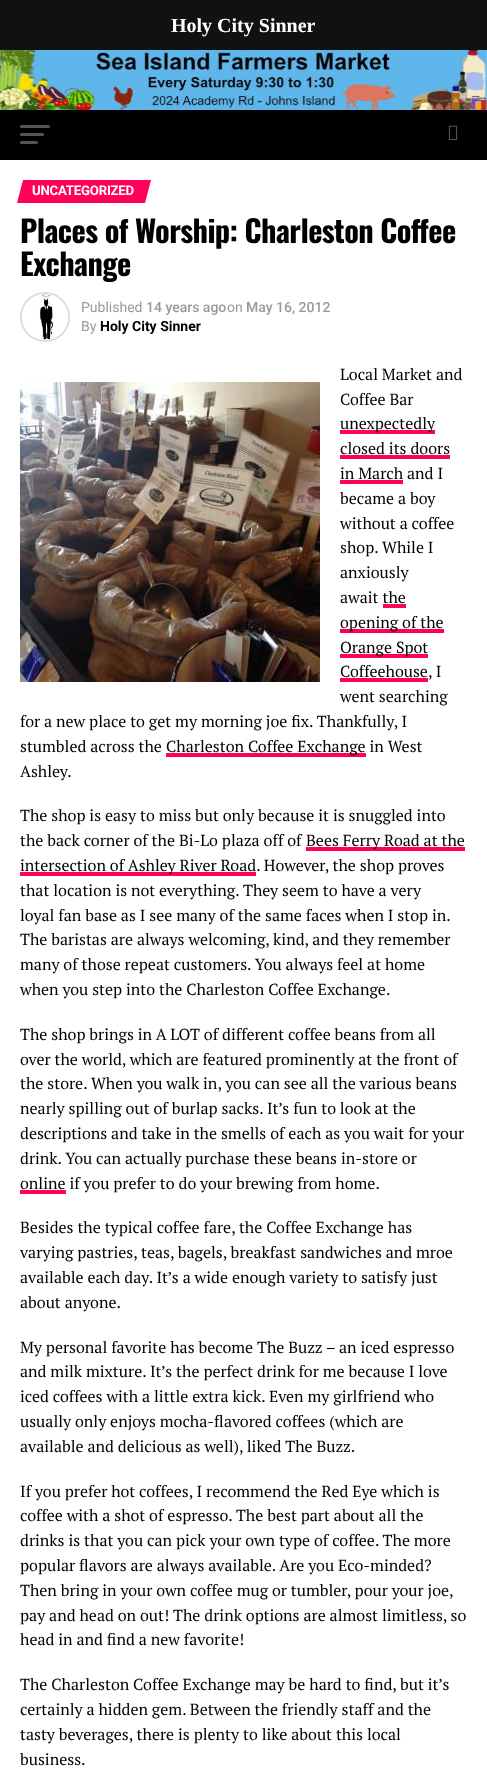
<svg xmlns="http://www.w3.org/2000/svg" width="487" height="1772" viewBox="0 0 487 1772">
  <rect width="100%" height="100%" fill="#fff"/>
  <path d="M0 0h487v50H0z" fill="#111"/>
  <image x="0" y="50" width="487" height="60" href="img/1.png"/>
  <path d="M0 110h487v50H0z" fill="#000"/>
  <rect x="20" y="125" width="30" height="3" rx="1.5" fill="#555"/>
  <rect x="20" y="133" width="24" height="3" rx="1.5" fill="#555"/>
  <rect x="20" y="141" width="18" height="3" rx="1.5" fill="#555"/>
  <image x="448" y="125" width="10" height="15" href="img/2.png"/>
  <path d="M23 180H151L145 203H17Z" fill="#ff005b"/>
  <circle cx="45" cy="317" r="24" fill="none" stroke="#ddd" stroke-width="2"/>
  <image x="22" y="294" width="46" height="46" href="img/3.png"/>
  <image x="20" y="382" width="300" height="300" href="img/4.png"/>
  <path d="M340 430h95v4H340z" fill="#ff005b"/>
  <path d="M340 455h110v4H340z" fill="#ff005b"/>
  <path d="M340 480h63v4H340z" fill="#ff005b"/>
  <path d="M383 604h23v4H383z" fill="#ff005b"/>
  <path d="M340 629h104v4H340z" fill="#ff005b"/>
  <path d="M340 654h88v4H340z" fill="#ff005b"/>
  <path d="M340 678h88v4H340z" fill="#ff005b"/>
  <path d="M166 753h200v4H166z" fill="#ff005b"/>
  <path d="M306 847h159v4H306z" fill="#ff005b"/>
  <path d="M20 872h236v4H20z" fill="#ff005b"/>
  <path d="M20 1190h46v4H20z" fill="#ff005b"/>
  <text x="171" y="32" font-family="Liberation Serif" font-size="20" font-weight="bold" fill="#fff">Holy City Sinner</text>
  <text x="32" y="195" font-family="Roboto" font-size="13.25" font-weight="bold" letter-spacing="-0.25" fill="#fff">UNCATEGORIZED</text>
  <g font-family="Oswald" font-size="30.4" font-weight="bold" letter-spacing="-0.6" fill="#000">
    <text x="20" y="243">Places of Worship: Charleston Coffee</text>
    <text x="20" y="276">Exchange</text>
  </g>
  <text x="81" y="312" font-family="Roboto" font-size="14" fill="#999">Published</text>
  <text x="146" y="312" font-family="Roboto" font-size="14" font-weight="500" fill="#999">14 years ago</text>
  <text x="227" y="312" font-family="Roboto" font-size="14" fill="#999">on</text>
  <text x="246" y="312" font-family="Roboto" font-size="14" font-weight="500" fill="#999">May 16, 2012</text>
  <text x="81" y="331" font-family="Roboto" font-size="14" fill="#999">By</text>
  <text x="100" y="331" font-family="Roboto" font-size="14" font-weight="bold" fill="#000">Holy City Sinner</text>
  <g font-family="PT Serif" font-size="16" fill="#000">
    <text x="340" y="380">Local Market and</text>
    <text x="340" y="405">Coffee Bar</text>
    <text x="340" y="429">unexpectedly</text>
    <text x="340" y="454">closed its doors</text>
    <text x="340" y="479">in March and I</text>
    <text x="340" y="504">became a boy</text>
    <text x="340" y="529">without a coffee</text>
    <text x="340" y="553">shop. While I</text>
    <text x="340" y="578">anxiously</text>
    <text x="340" y="603">await the</text>
    <text x="340" y="628">opening of the</text>
    <text x="340" y="653">Orange Spot</text>
    <text x="340" y="677">Coffeehouse, I</text>
    <text x="340" y="702">went searching</text>
    <text x="20" y="727">for a new place to get my morning joe fix. Thankfully, I</text>
    <text x="20" y="752">stumbled across the</text>
    <text x="166" y="752">Charleston Coffee Exchange in West</text>
    <text x="20" y="777">Ashley.</text>
    <text x="20" y="821">The shop is easy to miss but only because it is snuggled into</text>
    <text x="20" y="846">the back corner of the Bi-Lo plaza off of</text>
    <text x="306" y="846">Bees Ferry Road at the</text>
    <text x="20" y="871">intersection of Ashley River Road. However, the shop proves</text>
    <text x="20" y="896">that location is not everything. They seem to have a very</text>
    <text x="20" y="921">loyal fan base as I see many of the same faces when I stop in.</text>
    <text x="20" y="945">The baristas are always welcoming, kind, and they remember</text>
    <text x="20" y="970">many of those repeat customers. You always feel at home</text>
    <text x="20" y="995">when you step into the Charleston Coffee Exchange.</text>
    <text x="20" y="1040">The shop brings in A LOT of different coffee beans from all</text>
    <text x="20" y="1065">over the world, which are featured prominently at the front of</text>
    <text x="20" y="1089">the store. When you walk in, you can see all the various beans</text>
    <text x="20" y="1114">nearly spilling out of burlap sacks. It’s fun to look at the</text>
    <text x="20" y="1139">descriptions and take in the smells of each as you wait for your</text>
    <text x="20" y="1164">drink. You can actually purchase these beans in-store or</text>
    <text x="20" y="1189">online if you prefer to do your brewing from home.</text>
    <text x="20" y="1233">Besides the typical coffee fare, the Coffee Exchange has</text>
    <text x="20" y="1258">varying pastries, teas, bagels, breakfast sandwiches and mroe</text>
    <text x="20" y="1283">available each day. It’s a wide enough variety to satisfy just</text>
    <text x="20" y="1308">about anyone.</text>
    <text x="20" y="1353">My personal favorite has become The Buzz – an iced espresso</text>
    <text x="20" y="1377">and milk mixture. It’s the perfect drink for me because I love</text>
    <text x="20" y="1402">iced coffees with a little extra kick. Even my girlfriend who</text>
    <text x="20" y="1427">usually only enjoys mocha-flavored coffees (which are</text>
    <text x="20" y="1452">available and delicious as well), liked The Buzz.</text>
    <text x="20" y="1497">If you prefer hot coffees, I recommend the Red Eye which is</text>
    <text x="20" y="1521">coffee with a shot of espresso. The best part about all the</text>
    <text x="20" y="1546">drinks is that you can pick your own type of coffee. The more</text>
    <text x="20" y="1571">popular flavors are always available. Are you Eco-minded?</text>
    <text x="20" y="1596">Then bring in your own coffee mug or tumbler, pour your joe,</text>
    <text x="20" y="1621">pay and head on out! The drink options are almost limitless, so</text>
    <text x="20" y="1645">head in and find a new favorite!</text>
    <text x="20" y="1690">The Charleston Coffee Exchange may be hard to find, but it’s</text>
    <text x="20" y="1715">certainly a hidden gem. Between the friendly staff and the</text>
    <text x="20" y="1740">tasty beverages, there is plenty to like about this local</text>
    <text x="20" y="1765">business.</text>
  </g>
</svg>
